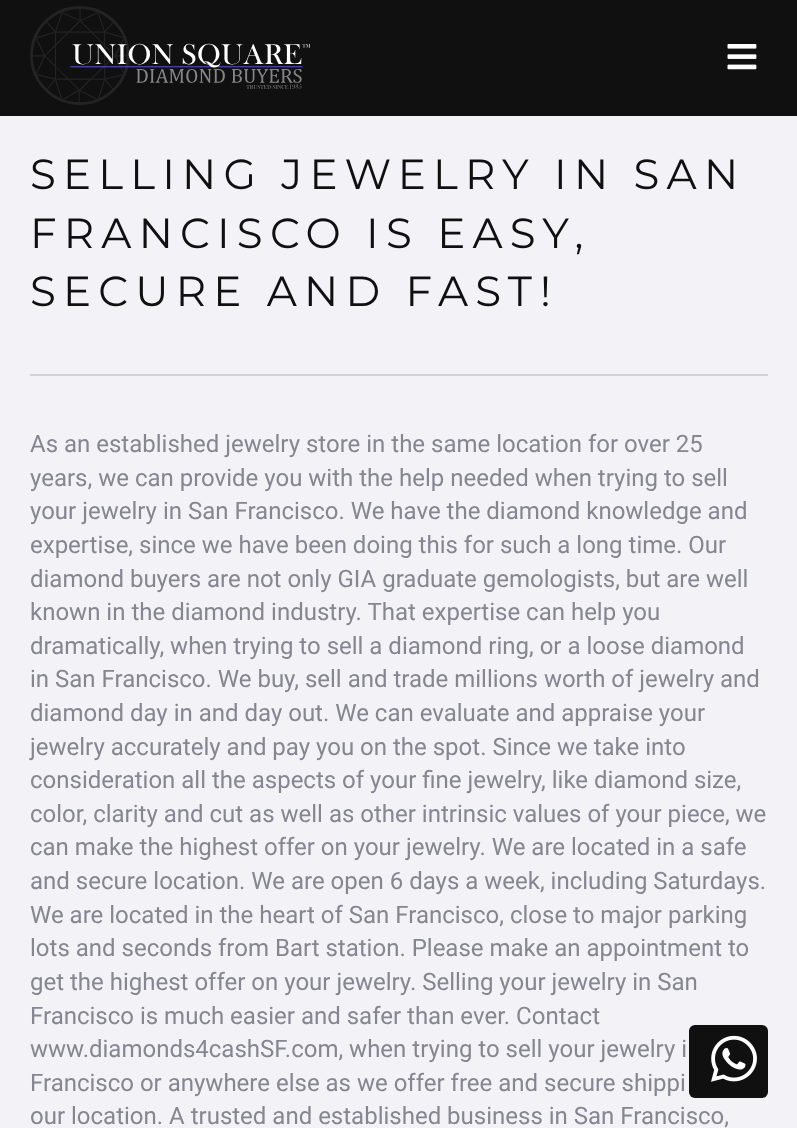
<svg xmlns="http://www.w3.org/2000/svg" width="797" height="1128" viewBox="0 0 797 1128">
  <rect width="100%" height="100%" fill="#f3f2f6"/>
  <path d="M0 0h797v116H0z" fill="#101011"/>
  <image x="30" y="6" width="281" height="99" href="img/1.png"/>
  <image x="727" y="44" width="30" height="26" href="img/2.png"/>
  <path d="M30 374h738v2H30z" fill="#d4d0d8"/>
  <rect x="689" y="1025" width="79" height="73" rx="6" fill="#101011"/>
  <image x="711" y="1035" width="46" height="47" href="img/3.png"/>
  <g font-family="Montserrat" font-size="42" letter-spacing="7.2" fill="#101011">
    <text x="30" y="189">SELLING JEWELRY IN SAN</text>
    <text x="30" y="248">FRANCISCO IS EASY,</text>
    <text x="30" y="306">SECURE AND FAST!</text>
  </g>
  <g font-family="Roboto" font-size="24" fill="#858690">
    <text x="30" y="452">As an established jewelry store in the same location for over 25</text>
    <text x="30" y="486">years, we can provide you with the help needed when trying to sell</text>
    <text x="30" y="519">your jewelry in San Francisco. We have the diamond knowledge and</text>
    <text x="30" y="553">expertise, since we have been doing this for such a long time. Our</text>
    <text x="30" y="587">diamond buyers are not only GIA graduate gemologists, but are well</text>
    <text x="30" y="620">known in the diamond industry. That expertise can help you</text>
    <text x="30" y="654">dramatically, when trying to sell a diamond ring, or a loose diamond</text>
    <text x="30" y="687">in San Francisco. We buy, sell and trade millions worth of jewelry and</text>
    <text x="30" y="721">diamond day in and day out. We can evaluate and appraise your</text>
    <text x="30" y="755">jewelry accurately and pay you on the spot. Since we take into</text>
    <text x="30" y="788">consideration all the aspects of your fine jewelry, like diamond size,</text>
    <text x="30" y="822">color, clarity and cut as well as other intrinsic values of your piece, we</text>
    <text x="30" y="855">can make the highest offer on your jewelry. We are located in a safe</text>
    <text x="30" y="889">and secure location. We are open 6 days a week, including Saturdays.</text>
    <text x="30" y="923">We are located in the heart of San Francisco, close to major parking</text>
    <text x="30" y="956">lots and seconds from Bart station. Please make an appointment to</text>
    <text x="30" y="990">get the highest offer on your jewelry. Selling your jewelry in San</text>
    <text x="30" y="1024">Francisco is much easier and safer than ever. Contact</text>
    <text x="30" y="1057">www.diamonds4cashSF.com, when trying to sell your jewelry i</text>
    <text x="30" y="1091">Francisco or anywhere else as we offer free and secure shippi</text>
    <text x="30" y="1124">our location. A trusted and established business in San Francisco,</text>
  </g>
</svg>
